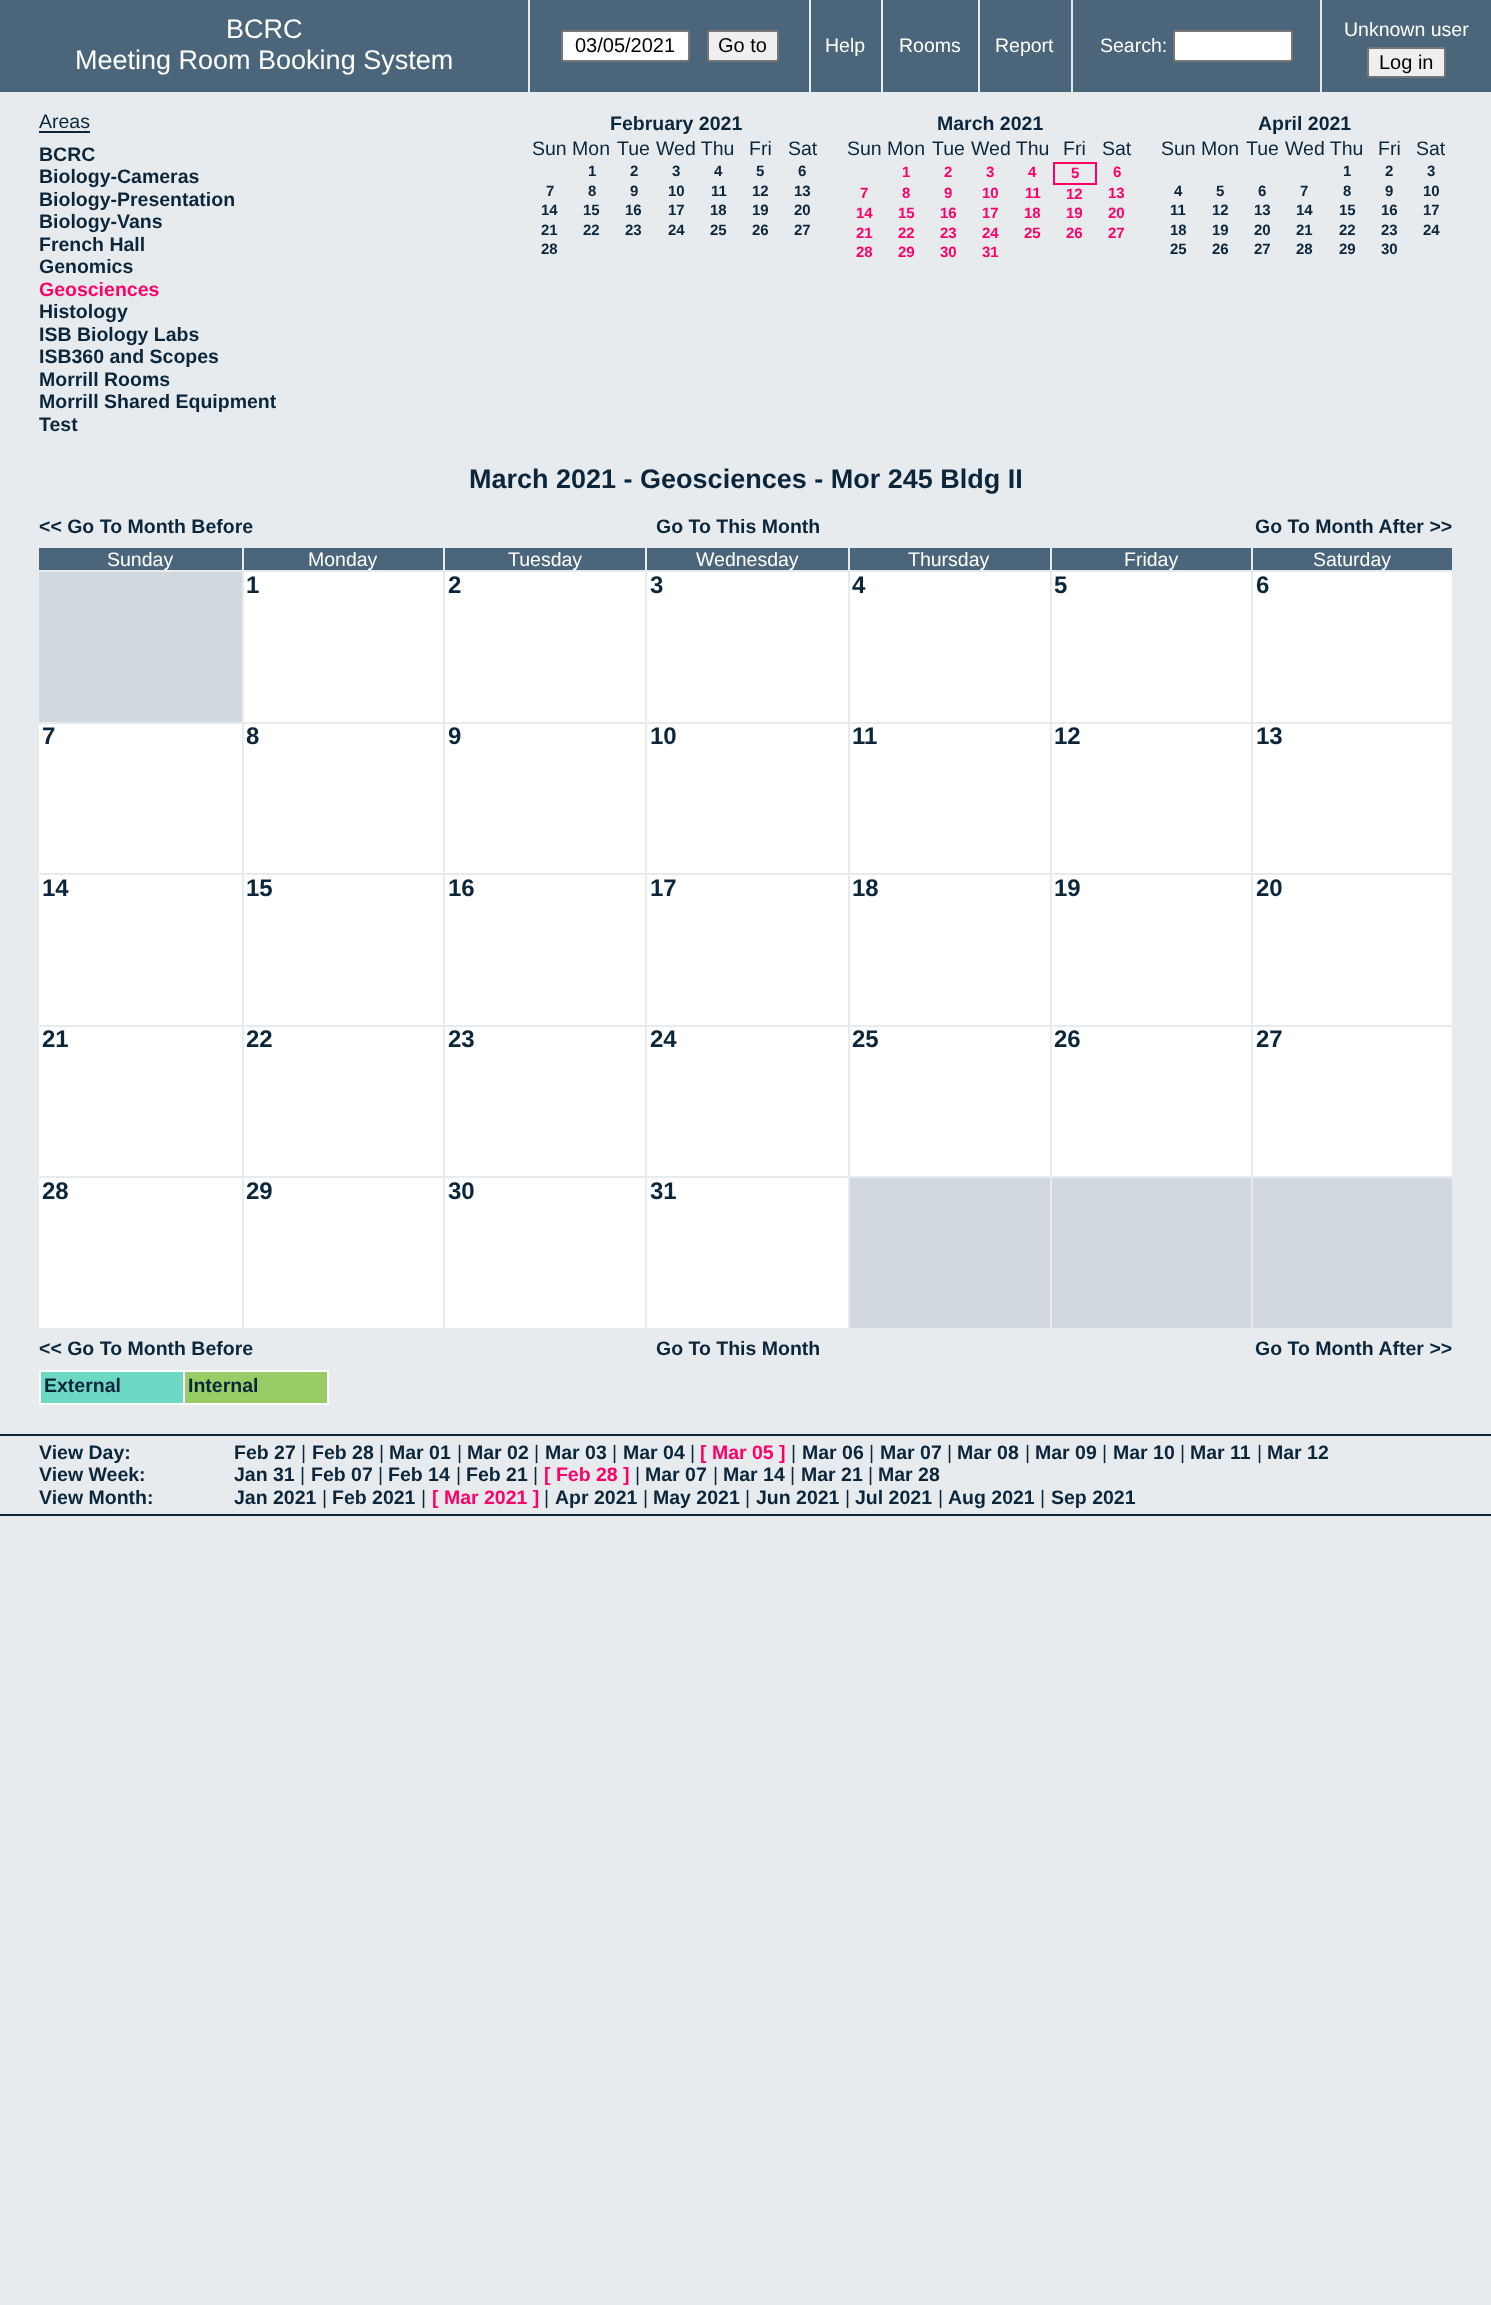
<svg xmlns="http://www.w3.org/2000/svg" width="1491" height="2305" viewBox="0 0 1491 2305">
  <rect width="100%" height="100%" fill="#e7ebee"/>
  <path d="M0 0h1491v92H0z" fill="#4b667b"/>
  <path d="M528 0h2v92H528z" fill="#e7ebee"/>
  <rect x="562" y="31" width="127" height="30" rx="2" fill="#fff" stroke="#767676" stroke-width="2"/>
  <rect x="708" y="31" width="70" height="30" rx="2" fill="#efefef" stroke="#767676" stroke-width="2"/>
  <path d="M809 0h2v92H809z" fill="#e7ebee"/>
  <path d="M881 0h2v92H881z" fill="#e7ebee"/>
  <path d="M978 0h2v92H978z" fill="#e7ebee"/>
  <path d="M1071 0h2v92H1071z" fill="#e7ebee"/>
  <rect x="1174" y="31" width="118" height="30" rx="2" fill="#fff" stroke="#767676" stroke-width="2"/>
  <path d="M1320 0h2v92H1320z" fill="#e7ebee"/>
  <rect x="1368" y="48" width="77" height="29" rx="2" fill="#efefef" stroke="#767676" stroke-width="2"/>
  <path d="M39 131h51v2H39z" fill="#0b263b"/>
  <path d="M1053 162h44v2H1053z" fill="#f06"/>
  <path d="M1095 162h2v23H1095z" fill="#f06"/>
  <path d="M1053 183h44v2H1053z" fill="#f06"/>
  <path d="M1053 162h2v23H1053z" fill="#f06"/>
  <path d="M39 548h203v22H39z" fill="#4b667b"/>
  <path d="M244 548h199v22H244z" fill="#4b667b"/>
  <path d="M445 548h200v22H445z" fill="#4b667b"/>
  <path d="M647 548h201v22H647z" fill="#4b667b"/>
  <path d="M850 548h200v22H850z" fill="#4b667b"/>
  <path d="M1052 548h199v22H1052z" fill="#4b667b"/>
  <path d="M1253 548h199v22H1253z" fill="#4b667b"/>
  <path d="M39 572h203v150H39z" fill="#d1d9de"/>
  <path d="M244 572h199v150H244z" fill="#fff"/>
  <path d="M445 572h200v150H445z" fill="#fff"/>
  <path d="M647 572h201v150H647z" fill="#fff"/>
  <path d="M850 572h200v150H850z" fill="#fff"/>
  <path d="M1052 572h199v150H1052z" fill="#fff"/>
  <path d="M1253 572h199v150H1253z" fill="#fff"/>
  <path d="M39 724h203v149H39z" fill="#fff"/>
  <path d="M244 724h199v149H244z" fill="#fff"/>
  <path d="M445 724h200v149H445z" fill="#fff"/>
  <path d="M647 724h201v149H647z" fill="#fff"/>
  <path d="M850 724h200v149H850z" fill="#fff"/>
  <path d="M1052 724h199v149H1052z" fill="#fff"/>
  <path d="M1253 724h199v149H1253z" fill="#fff"/>
  <path d="M39 875h203v150H39z" fill="#fff"/>
  <path d="M244 875h199v150H244z" fill="#fff"/>
  <path d="M445 875h200v150H445z" fill="#fff"/>
  <path d="M647 875h201v150H647z" fill="#fff"/>
  <path d="M850 875h200v150H850z" fill="#fff"/>
  <path d="M1052 875h199v150H1052z" fill="#fff"/>
  <path d="M1253 875h199v150H1253z" fill="#fff"/>
  <path d="M39 1027h203v149H39z" fill="#fff"/>
  <path d="M244 1027h199v149H244z" fill="#fff"/>
  <path d="M445 1027h200v149H445z" fill="#fff"/>
  <path d="M647 1027h201v149H647z" fill="#fff"/>
  <path d="M850 1027h200v149H850z" fill="#fff"/>
  <path d="M1052 1027h199v149H1052z" fill="#fff"/>
  <path d="M1253 1027h199v149H1253z" fill="#fff"/>
  <path d="M39 1178h203v150H39z" fill="#fff"/>
  <path d="M244 1178h199v150H244z" fill="#fff"/>
  <path d="M445 1178h200v150H445z" fill="#fff"/>
  <path d="M647 1178h201v150H647z" fill="#fff"/>
  <path d="M850 1178h200v150H850z" fill="#d1d9de"/>
  <path d="M1052 1178h199v150H1052z" fill="#d1d9de"/>
  <path d="M1253 1178h199v150H1253z" fill="#d1d9de"/>
  <path d="M41 1372h142v31H41z" fill="#6dd9c4"/>
  <path d="M183 1370h146v2H183z" fill="#fff"/>
  <path d="M327 1370h2v34H327z" fill="#fff"/>
  <path d="M183 1403h146v2H183z" fill="#fff"/>
  <path d="M183 1370h2v34H183z" fill="#fff"/>
  <path d="M39 1370h146v2H39z" fill="#fff"/>
  <path d="M39 1403h146v2H39z" fill="#fff"/>
  <path d="M39 1370h2v34H39z" fill="#fff"/>
  <path d="M185 1372h142v31H185z" fill="#9c6"/>
  <path d="M0 1434h1491v2H0z" fill="#0b263b"/>
  <path d="M0 1514h1491v2H0z" fill="#0b263b"/>
  <g font-family="Liberation Sans" font-size="27" fill="#fff">
    <text x="226" y="38">BCRC</text>
    <text x="75" y="69">Meeting Room Booking System</text>
  </g>
  <g font-family="Liberation Sans" font-size="20" fill="#000">
    <text x="575" y="52">03/05/2021</text>
    <text x="718" y="52">Go to</text>
  </g>
  <g font-family="Liberation Sans" font-size="19.5" fill="#fff">
    <text x="825" y="52">Help</text>
    <text x="899" y="52">Rooms</text>
    <text x="995" y="52">Report</text>
    <text x="1100" y="52">Search:</text>
    <text x="1344" y="36">Unknown user</text>
  </g>
  <text x="1379" y="69" font-family="Liberation Sans" font-size="20" fill="#000">Log in</text>
  <text x="39" y="128" font-family="Liberation Sans" font-size="19.5" fill="#0b263b">Areas</text>
  <g font-family="Liberation Sans" font-size="19.5" font-weight="bold" fill="#0b263b">
    <text x="39" y="161">BCRC</text>
    <text x="39" y="183">Biology-Cameras</text>
    <text x="39" y="206">Biology-Presentation</text>
    <text x="39" y="228">Biology-Vans</text>
    <text x="39" y="251">French Hall</text>
    <text x="39" y="273">Genomics</text>
  </g>
  <text x="39" y="296" font-family="Liberation Sans" font-size="19.5" font-weight="bold" fill="#f06">Geosciences</text>
  <g font-family="Liberation Sans" font-size="19.5" font-weight="bold" fill="#0b263b">
    <text x="39" y="318">Histology</text>
    <text x="39" y="341">ISB Biology Labs</text>
    <text x="39" y="363">ISB360 and Scopes</text>
    <text x="39" y="386">Morrill Rooms</text>
    <text x="39" y="408">Morrill Shared Equipment</text>
    <text x="39" y="431">Test</text>
    <text x="610" y="130">February 2021</text>
  </g>
  <g font-family="Liberation Sans" font-size="19.5" fill="#0b263b">
    <text x="532" y="155">Sun Mon</text>
    <text x="617" y="155">Tue</text>
    <text x="656" y="155">Wed Thu</text>
    <text x="749" y="155">Fri</text>
    <text x="788" y="155">Sat</text>
  </g>
  <g font-family="Liberation Sans" font-size="15" font-weight="bold" fill="#0b263b">
    <text x="588" y="176">1</text>
    <text x="630" y="176">2</text>
    <text x="672" y="176">3</text>
    <text x="714" y="176">4</text>
    <text x="756" y="176">5</text>
    <text x="798" y="176">6</text>
    <text x="546" y="196">7</text>
    <text x="588" y="196">8</text>
    <text x="630" y="196">9</text>
    <text x="668" y="196">10</text>
    <text x="711" y="196">11</text>
    <text x="752" y="196">12</text>
    <text x="794" y="196">13</text>
    <text x="541" y="215">14</text>
    <text x="583" y="215">15</text>
    <text x="625" y="215">16</text>
    <text x="668" y="215">17</text>
    <text x="710" y="215">18</text>
    <text x="752" y="215">19</text>
    <text x="794" y="215">20</text>
    <text x="541" y="235">21</text>
    <text x="583" y="235">22</text>
    <text x="625" y="235">23</text>
    <text x="668" y="235">24</text>
    <text x="710" y="235">25</text>
    <text x="752" y="235">26</text>
    <text x="794" y="235">27</text>
    <text x="541" y="254">28</text>
  </g>
  <text x="937" y="130" font-family="Liberation Sans" font-size="19.5" font-weight="bold" fill="#0b263b">March 2021</text>
  <g font-family="Liberation Sans" font-size="19.5" fill="#0b263b">
    <text x="847" y="155">Sun Mon</text>
    <text x="932" y="155">Tue</text>
    <text x="971" y="155">Wed Thu</text>
    <text x="1063" y="155">Fri</text>
    <text x="1102" y="155">Sat</text>
  </g>
  <g font-family="Liberation Sans" font-size="15" font-weight="bold" fill="#f06">
    <text x="902" y="177">1</text>
    <text x="944" y="177">2</text>
    <text x="986" y="177">3</text>
    <text x="1028" y="177">4</text>
    <text x="1071" y="178">5</text>
    <text x="1113" y="177">6</text>
    <text x="860" y="198">7</text>
    <text x="902" y="198">8</text>
    <text x="944" y="198">9</text>
    <text x="982" y="198">10</text>
    <text x="1025" y="198">11</text>
    <text x="1066" y="199">12</text>
    <text x="1108" y="198">13</text>
    <text x="856" y="218">14</text>
    <text x="898" y="218">15</text>
    <text x="940" y="218">16</text>
    <text x="982" y="218">17</text>
    <text x="1024" y="218">18</text>
    <text x="1066" y="218">19</text>
    <text x="1108" y="218">20</text>
    <text x="856" y="238">21</text>
    <text x="898" y="238">22</text>
    <text x="940" y="238">23</text>
    <text x="982" y="238">24</text>
    <text x="1024" y="238">25</text>
    <text x="1066" y="238">26</text>
    <text x="1108" y="238">27</text>
    <text x="856" y="257">28</text>
    <text x="898" y="257">29</text>
    <text x="940" y="257">30</text>
    <text x="982" y="257">31</text>
  </g>
  <text x="1258" y="130" font-family="Liberation Sans" font-size="19.5" font-weight="bold" fill="#0b263b">April 2021</text>
  <g font-family="Liberation Sans" font-size="19.5" fill="#0b263b">
    <text x="1161" y="155">Sun Mon</text>
    <text x="1246" y="155">Tue</text>
    <text x="1285" y="155">Wed Thu</text>
    <text x="1378" y="155">Fri</text>
    <text x="1416" y="155">Sat</text>
  </g>
  <g font-family="Liberation Sans" font-size="15" font-weight="bold" fill="#0b263b">
    <text x="1343" y="176">1</text>
    <text x="1385" y="176">2</text>
    <text x="1427" y="176">3</text>
    <text x="1174" y="196">4</text>
    <text x="1216" y="196">5</text>
    <text x="1258" y="196">6</text>
    <text x="1300" y="196">7</text>
    <text x="1343" y="196">8</text>
    <text x="1385" y="196">9</text>
    <text x="1423" y="196">10</text>
    <text x="1170" y="215">11</text>
    <text x="1212" y="215">12</text>
    <text x="1254" y="215">13</text>
    <text x="1296" y="215">14</text>
    <text x="1339" y="215">15</text>
    <text x="1381" y="215">16</text>
    <text x="1423" y="215">17</text>
    <text x="1170" y="235">18</text>
    <text x="1212" y="235">19</text>
    <text x="1254" y="235">20</text>
    <text x="1296" y="235">21</text>
    <text x="1339" y="235">22</text>
    <text x="1381" y="235">23</text>
    <text x="1423" y="235">24</text>
    <text x="1170" y="254">25</text>
    <text x="1212" y="254">26</text>
    <text x="1254" y="254">27</text>
    <text x="1296" y="254">28</text>
    <text x="1339" y="254">29</text>
    <text x="1381" y="254">30</text>
  </g>
  <text x="469" y="488" font-family="Liberation Sans" font-size="27" font-weight="bold" fill="#0b263b">March 2021 - Geosciences - Mor 245 Bldg II</text>
  <g font-family="Liberation Sans" font-size="19.5" font-weight="bold" fill="#0b263b">
    <text x="39" y="533">&lt;&lt; Go To Month Before</text>
    <text x="656" y="533">Go To This Month</text>
    <text x="1255" y="533">Go To Month After &gt;&gt;</text>
  </g>
  <g font-family="Liberation Sans" font-size="19.5" fill="#fff">
    <text x="107" y="566">Sunday</text>
    <text x="308" y="566">Monday</text>
    <text x="508" y="566">Tuesday</text>
    <text x="696" y="566">Wednesday</text>
    <text x="908" y="566">Thursday</text>
    <text x="1124" y="566">Friday</text>
    <text x="1313" y="566">Saturday</text>
  </g>
  <g font-family="Liberation Sans" font-size="24" font-weight="bold" fill="#0b263b">
    <text x="246" y="593">1</text>
    <text x="448" y="593">2</text>
    <text x="650" y="593">3</text>
    <text x="852" y="593">4</text>
    <text x="1054" y="593">5</text>
    <text x="1256" y="593">6</text>
    <text x="42" y="744">7</text>
    <text x="246" y="744">8</text>
    <text x="448" y="744">9</text>
    <text x="650" y="744">10</text>
    <text x="852" y="744">11</text>
    <text x="1054" y="744">12</text>
    <text x="1256" y="744">13</text>
    <text x="42" y="896">14</text>
    <text x="246" y="896">15</text>
    <text x="448" y="896">16</text>
    <text x="650" y="896">17</text>
    <text x="852" y="896">18</text>
    <text x="1054" y="896">19</text>
    <text x="1256" y="896">20</text>
    <text x="42" y="1047">21</text>
    <text x="246" y="1047">22</text>
    <text x="448" y="1047">23</text>
    <text x="650" y="1047">24</text>
    <text x="852" y="1047">25</text>
    <text x="1054" y="1047">26</text>
    <text x="1256" y="1047">27</text>
    <text x="42" y="1199">28</text>
    <text x="246" y="1199">29</text>
    <text x="448" y="1199">30</text>
    <text x="650" y="1199">31</text>
  </g>
  <g font-family="Liberation Sans" font-size="19.5" font-weight="bold" fill="#0b263b">
    <text x="39" y="1355">&lt;&lt; Go To Month Before</text>
    <text x="656" y="1355">Go To This Month</text>
    <text x="1255" y="1355">Go To Month After &gt;&gt;</text>
    <text x="44" y="1392">External</text>
    <text x="188" y="1392">Internal</text>
    <text x="39" y="1459">View Day:</text>
    <text x="234" y="1459">Feb 27</text>
  </g>
  <text x="301" y="1459" font-family="Liberation Sans" font-size="19.5" fill="#0b263b">|</text>
  <text x="312" y="1459" font-family="Liberation Sans" font-size="19.5" font-weight="bold" fill="#0b263b">Feb 28</text>
  <text x="379" y="1459" font-family="Liberation Sans" font-size="19.5" fill="#0b263b">|</text>
  <text x="389" y="1459" font-family="Liberation Sans" font-size="19.5" font-weight="bold" fill="#0b263b">Mar 01</text>
  <text x="457" y="1459" font-family="Liberation Sans" font-size="19.5" fill="#0b263b">|</text>
  <text x="467" y="1459" font-family="Liberation Sans" font-size="19.5" font-weight="bold" fill="#0b263b">Mar 02</text>
  <text x="534" y="1459" font-family="Liberation Sans" font-size="19.5" fill="#0b263b">|</text>
  <text x="545" y="1459" font-family="Liberation Sans" font-size="19.5" font-weight="bold" fill="#0b263b">Mar 03</text>
  <text x="612" y="1459" font-family="Liberation Sans" font-size="19.5" fill="#0b263b">|</text>
  <text x="623" y="1459" font-family="Liberation Sans" font-size="19.5" font-weight="bold" fill="#0b263b">Mar 04</text>
  <text x="690" y="1459" font-family="Liberation Sans" font-size="19.5" fill="#0b263b">|</text>
  <text x="700" y="1459" font-family="Liberation Sans" font-size="19.5" font-weight="bold" fill="#f06">[ Mar 05 ]</text>
  <text x="791" y="1459" font-family="Liberation Sans" font-size="19.5" fill="#0b263b">|</text>
  <text x="802" y="1459" font-family="Liberation Sans" font-size="19.5" font-weight="bold" fill="#0b263b">Mar 06</text>
  <text x="869" y="1459" font-family="Liberation Sans" font-size="19.5" fill="#0b263b">|</text>
  <text x="880" y="1459" font-family="Liberation Sans" font-size="19.5" font-weight="bold" fill="#0b263b">Mar 07</text>
  <text x="947" y="1459" font-family="Liberation Sans" font-size="19.5" fill="#0b263b">|</text>
  <text x="957" y="1459" font-family="Liberation Sans" font-size="19.5" font-weight="bold" fill="#0b263b">Mar 08</text>
  <text x="1025" y="1459" font-family="Liberation Sans" font-size="19.5" fill="#0b263b">|</text>
  <text x="1035" y="1459" font-family="Liberation Sans" font-size="19.5" font-weight="bold" fill="#0b263b">Mar 09</text>
  <text x="1102" y="1459" font-family="Liberation Sans" font-size="19.5" fill="#0b263b">|</text>
  <text x="1113" y="1459" font-family="Liberation Sans" font-size="19.5" font-weight="bold" fill="#0b263b">Mar 10</text>
  <text x="1180" y="1459" font-family="Liberation Sans" font-size="19.5" fill="#0b263b">|</text>
  <text x="1190" y="1459" font-family="Liberation Sans" font-size="19.5" font-weight="bold" fill="#0b263b">Mar 11</text>
  <text x="1257" y="1459" font-family="Liberation Sans" font-size="19.5" fill="#0b263b">|</text>
  <g font-family="Liberation Sans" font-size="19.5" font-weight="bold" fill="#0b263b">
    <text x="1267" y="1459">Mar 12</text>
    <text x="39" y="1481">View Week:</text>
    <text x="234" y="1481">Jan 31</text>
  </g>
  <text x="300" y="1481" font-family="Liberation Sans" font-size="19.5" fill="#0b263b">|</text>
  <text x="311" y="1481" font-family="Liberation Sans" font-size="19.5" font-weight="bold" fill="#0b263b">Feb 07</text>
  <text x="378" y="1481" font-family="Liberation Sans" font-size="19.5" fill="#0b263b">|</text>
  <text x="388" y="1481" font-family="Liberation Sans" font-size="19.5" font-weight="bold" fill="#0b263b">Feb 14</text>
  <text x="456" y="1481" font-family="Liberation Sans" font-size="19.5" fill="#0b263b">|</text>
  <text x="466" y="1481" font-family="Liberation Sans" font-size="19.5" font-weight="bold" fill="#0b263b">Feb 21</text>
  <text x="533" y="1481" font-family="Liberation Sans" font-size="19.5" fill="#0b263b">|</text>
  <text x="544" y="1481" font-family="Liberation Sans" font-size="19.5" font-weight="bold" fill="#f06">[ Feb 28 ]</text>
  <text x="635" y="1481" font-family="Liberation Sans" font-size="19.5" fill="#0b263b">|</text>
  <text x="645" y="1481" font-family="Liberation Sans" font-size="19.5" font-weight="bold" fill="#0b263b">Mar 07</text>
  <text x="713" y="1481" font-family="Liberation Sans" font-size="19.5" fill="#0b263b">|</text>
  <text x="723" y="1481" font-family="Liberation Sans" font-size="19.5" font-weight="bold" fill="#0b263b">Mar 14</text>
  <text x="790" y="1481" font-family="Liberation Sans" font-size="19.5" fill="#0b263b">|</text>
  <text x="801" y="1481" font-family="Liberation Sans" font-size="19.5" font-weight="bold" fill="#0b263b">Mar 21</text>
  <text x="868" y="1481" font-family="Liberation Sans" font-size="19.5" fill="#0b263b">|</text>
  <g font-family="Liberation Sans" font-size="19.5" font-weight="bold" fill="#0b263b">
    <text x="878" y="1481">Mar 28</text>
    <text x="39" y="1504">View Month:</text>
    <text x="234" y="1504">Jan 2021</text>
  </g>
  <text x="322" y="1504" font-family="Liberation Sans" font-size="19.5" fill="#0b263b">|</text>
  <text x="332" y="1504" font-family="Liberation Sans" font-size="19.5" font-weight="bold" fill="#0b263b">Feb 2021</text>
  <text x="421" y="1504" font-family="Liberation Sans" font-size="19.5" fill="#0b263b">|</text>
  <text x="432" y="1504" font-family="Liberation Sans" font-size="19.5" font-weight="bold" fill="#f06">[ Mar 2021 ]</text>
  <text x="544" y="1504" font-family="Liberation Sans" font-size="19.5" fill="#0b263b">|</text>
  <text x="555" y="1504" font-family="Liberation Sans" font-size="19.5" font-weight="bold" fill="#0b263b">Apr 2021</text>
  <text x="643" y="1504" font-family="Liberation Sans" font-size="19.5" fill="#0b263b">|</text>
  <text x="653" y="1504" font-family="Liberation Sans" font-size="19.5" font-weight="bold" fill="#0b263b">May 2021</text>
  <text x="745" y="1504" font-family="Liberation Sans" font-size="19.5" fill="#0b263b">|</text>
  <text x="756" y="1504" font-family="Liberation Sans" font-size="19.5" font-weight="bold" fill="#0b263b">Jun 2021</text>
  <text x="845" y="1504" font-family="Liberation Sans" font-size="19.5" fill="#0b263b">|</text>
  <text x="855" y="1504" font-family="Liberation Sans" font-size="19.5" font-weight="bold" fill="#0b263b">Jul 2021</text>
  <text x="938" y="1504" font-family="Liberation Sans" font-size="19.5" fill="#0b263b">|</text>
  <text x="948" y="1504" font-family="Liberation Sans" font-size="19.5" font-weight="bold" fill="#0b263b">Aug 2021</text>
  <text x="1040" y="1504" font-family="Liberation Sans" font-size="19.5" fill="#0b263b">|</text>
  <text x="1051" y="1504" font-family="Liberation Sans" font-size="19.5" font-weight="bold" fill="#0b263b">Sep 2021</text>
</svg>
